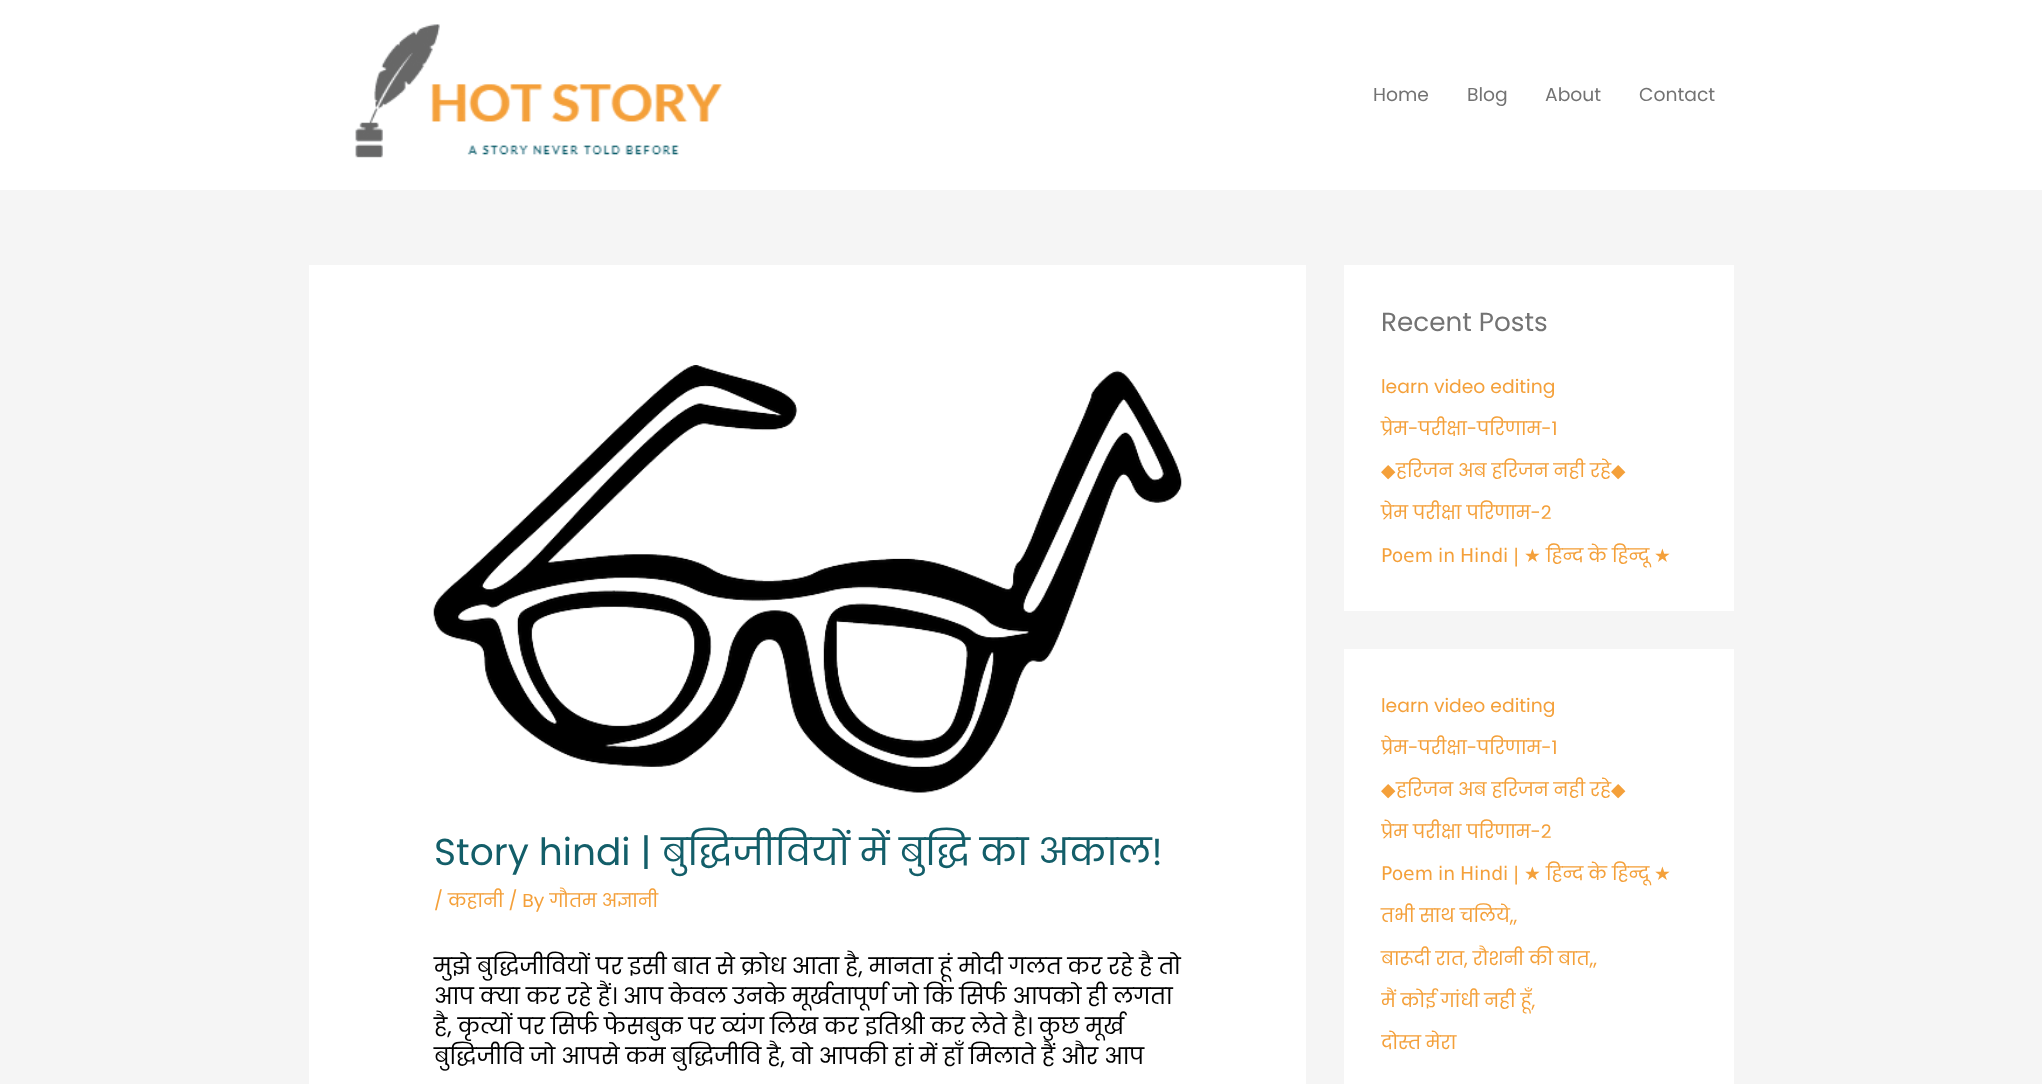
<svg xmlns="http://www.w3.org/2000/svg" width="2042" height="1084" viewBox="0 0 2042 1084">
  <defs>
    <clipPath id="clip1"><path d="M1381 729h315v37H1381z"/></clipPath>
    <clipPath id="clip2"><path d="M1381 813h315v37H1381z"/></clipPath>
    <clipPath id="clip3"><path d="M1381 981h315v38H1381z"/></clipPath>
    <clipPath id="clip4"><path d="M1381 1024h315v37H1381z"/></clipPath>
  </defs>
  <rect width="100%" height="100%" fill="#f5f5f5"/>
  <path d="M0 0h2042v190H0z" fill="#fff"/>
  <image x="355" y="24" width="368" height="134" href="img/1.png"/>
  <path d="M309 265h997v819H309z" fill="#fff"/>
  <image x="433" y="365" width="749" height="428" href="img/2.png"/>
  <path d="M1344 265h390v346H1344z" fill="#fff"/>
  <path d="M1344 649h390v435H1344z" fill="#fff"/>
  <g font-family="Poppins" font-size="18.75" fill="#737373">
    <text x="1373" y="101">Home</text>
    <text x="1467" y="101">Blog</text>
    <text x="1545" y="101">About</text>
    <text x="1639" y="101">Contact</text>
  </g>
  <text x="434" y="865" font-family="Poppins" font-size="37.5" fill="#135e69">Story hindi | बुद्धिजीवियों में बुद्धि का अकाल!</text>
  <text x="434" y="907" font-family="Poppins" font-size="18.75" fill="#f4a03a">/ कहानी / By गौतम अज्ञानी</text>
  <g font-family="Poppins" font-size="22.5" fill="#000">
    <text x="434" y="974">मुझे बुद्धिजीवियों पर इसी बात से क्रोध आता है, मानता हूं मोदी गलत कर रहे है तो</text>
    <text x="434" y="1004">आप क्या कर रहे हैं। आप केवल उनके मूर्खतापूर्ण जो कि सिर्फ आपको ही लगता</text>
    <text x="434" y="1034">है, कृत्यों पर सिर्फ फेसबुक पर व्यंग लिख कर इतिश्री कर लेते है। कुछ मूर्ख</text>
    <text x="434" y="1064">बुद्धिजीवि जो आपसे कम बुद्धिजीवि है, वो आपकी हां में हाँ मिलाते हैं और आप</text>
  </g>
  <text x="1381" y="331" font-family="Poppins" font-size="26.25" fill="#737373">Recent Posts</text>
  <g font-family="Poppins" font-size="18.75" fill="#f4a03a">
    <text x="1381" y="393">learn video editing</text>
    <text x="1381" y="435">प्रेम-परीक्षा-परिणाम-1</text>
  </g>
  <text x="1381" y="477" font-family="DejaVu Sans" font-size="18.75" fill="#f4a03a">◆</text>
  <text x="1396" y="477" font-family="Poppins" font-size="18.75" fill="#f4a03a">हरिजन अब हरिजन नही रहे</text>
  <text x="1611" y="477" font-family="DejaVu Sans" font-size="18.75" fill="#f4a03a">◆</text>
  <text x="1381" y="519" font-family="Poppins" font-size="18.75" fill="#f4a03a">प्रेम परीक्षा परिणाम-2</text>
  <g font-family="DejaVu Sans" font-size="18.75" fill="#f4a03a">
    <text x="1381" y="562">Poem</text>
    <text x="1438" y="562">in</text>
    <text x="1460" y="562">Hindi</text>
    <text x="1513" y="562">|</text>
    <text x="1524" y="562">★</text>
  </g>
  <text x="1546" y="562" font-family="Poppins" font-size="18.75" fill="#f4a03a">हिन्द के हिन्दू</text>
  <text x="1654" y="562" font-family="DejaVu Sans" font-size="18.75" fill="#f4a03a">★</text>
  <text x="1381" y="712" font-family="Poppins" font-size="18.75" fill="#f4a03a">learn video editing</text>
  <g clip-path="url(#clip1)">
    <text x="1381" y="754" font-family="Poppins" font-size="18.75" fill="#f4a03a">प्रेम-परीक्षा-परिणाम-1</text>
  </g>
  <text x="1381" y="796" font-family="DejaVu Sans" font-size="18.75" fill="#f4a03a">◆</text>
  <text x="1396" y="796" font-family="Poppins" font-size="18.75" fill="#f4a03a">हरिजन अब हरिजन नही रहे</text>
  <text x="1611" y="796" font-family="DejaVu Sans" font-size="18.75" fill="#f4a03a">◆</text>
  <g clip-path="url(#clip2)">
    <text x="1381" y="838" font-family="Poppins" font-size="18.75" fill="#f4a03a">प्रेम परीक्षा परिणाम-2</text>
  </g>
  <g font-family="DejaVu Sans" font-size="18.75" fill="#f4a03a">
    <text x="1381" y="880">Poem</text>
    <text x="1438" y="880">in</text>
    <text x="1460" y="880">Hindi</text>
    <text x="1513" y="880">|</text>
    <text x="1524" y="880">★</text>
  </g>
  <text x="1546" y="880" font-family="Poppins" font-size="18.75" fill="#f4a03a">हिन्द के हिन्दू</text>
  <text x="1654" y="880" font-family="DejaVu Sans" font-size="18.75" fill="#f4a03a">★</text>
  <g font-family="Poppins" font-size="18.75" fill="#f4a03a">
    <text x="1381" y="922">तभी साथ चलिये,,</text>
    <text x="1381" y="965">बारूदी रात, रौशनी की बात,,</text>
  </g>
  <g clip-path="url(#clip3)">
    <text x="1381" y="1007" font-family="Poppins" font-size="18.75" fill="#f4a03a">मैं कोई गांधी नही हूँ,</text>
  </g>
  <g clip-path="url(#clip4)">
    <text x="1381" y="1049" font-family="Poppins" font-size="18.75" fill="#f4a03a">दोस्त मेरा</text>
  </g>
</svg>
